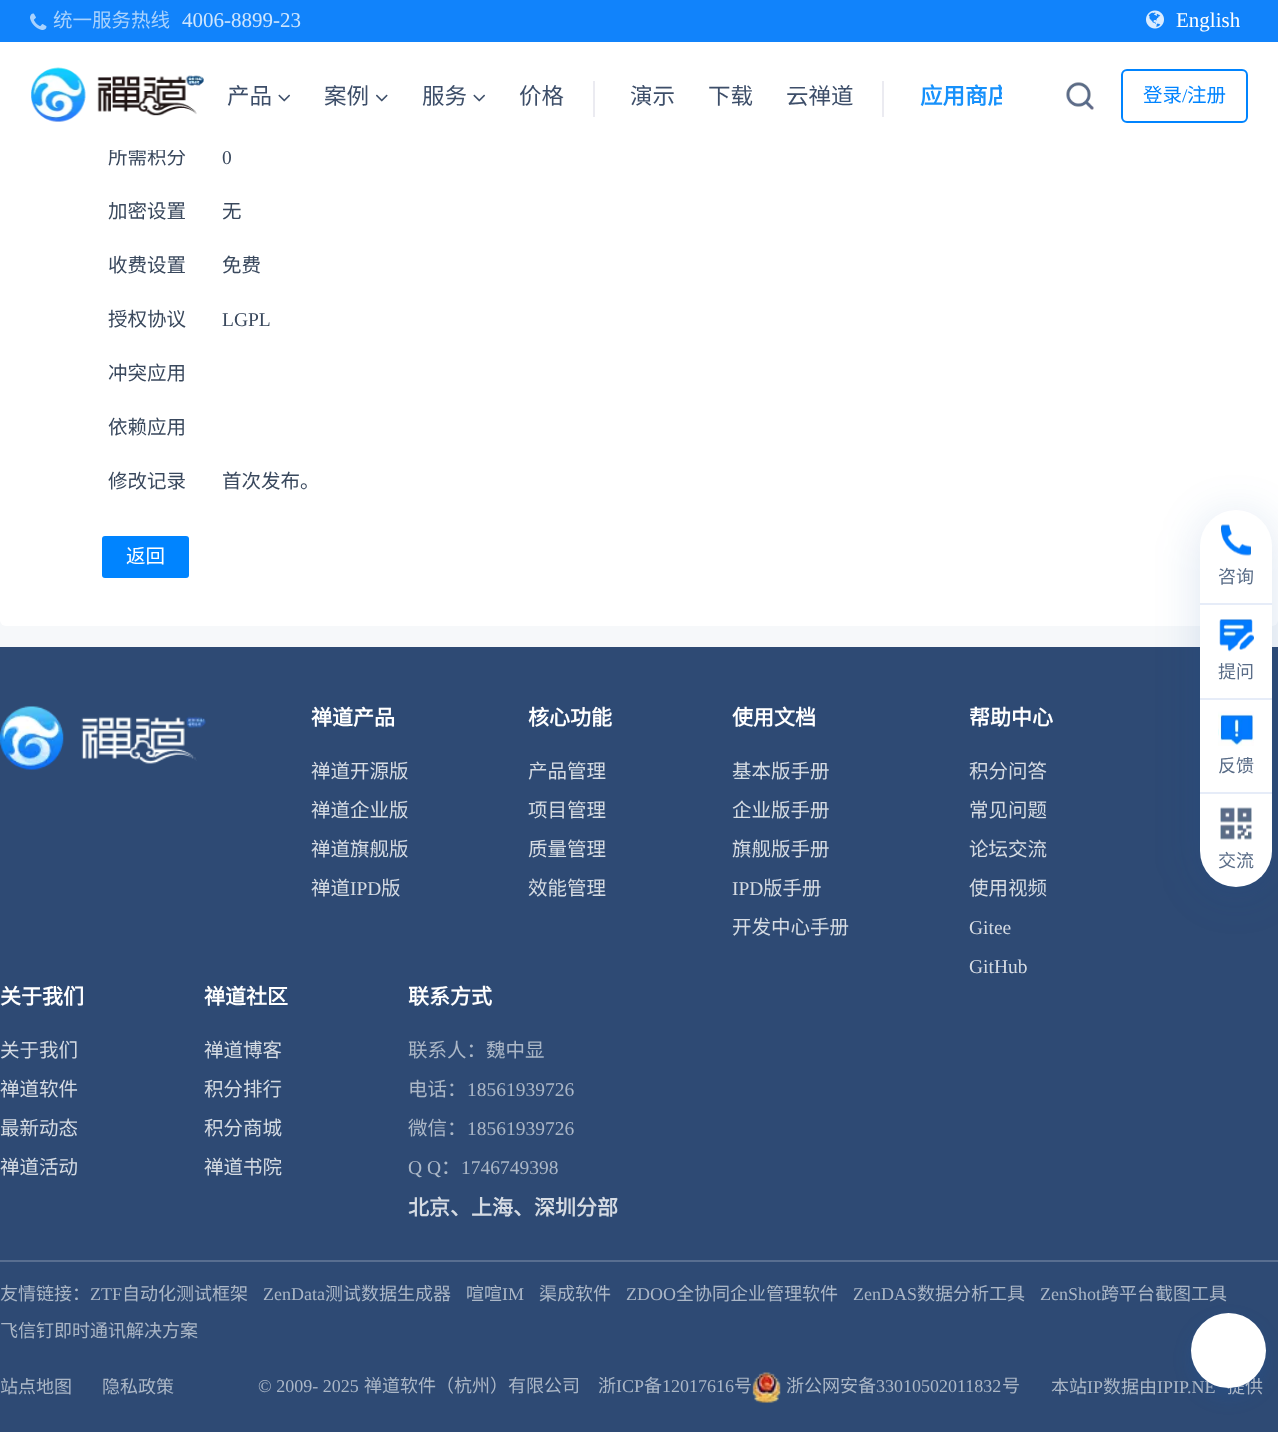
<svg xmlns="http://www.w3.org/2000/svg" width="1278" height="1432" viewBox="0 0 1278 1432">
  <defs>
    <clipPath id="clip1"><path d="M210 42h792v108H210z"/></clipPath>
  </defs>
  <rect width="100%" height="100%" fill="#f6f8fa"/>
  <rect y="-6" width="1278" height="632" rx="6" fill="#fff"/>
  <path d="M0 0h1278v42H0z" fill="#1183fb"/>
  <image x="30" y="13" width="17" height="17" href="img/1.png"/>
  <image x="1146" y="10" width="18" height="19" href="img/2.png"/>
  <image x="31" y="67" width="173" height="55" href="img/3.png"/>
  <image x="278" y="94" width="12" height="8" href="img/4.png"/>
  <image x="376" y="94" width="12" height="8" href="img/5.png"/>
  <image x="473" y="94" width="12" height="8" href="img/4.png"/>
  <path d="M593 81h2v36H593z" fill="#ebebf1"/>
  <path d="M882 81h2v36H882z" fill="#ebebf1"/>
  <image x="1066" y="82" width="28" height="28" href="img/6.png"/>
  <rect x="1122" y="70" width="125" height="52" rx="5" fill="none" stroke="#0084ff" stroke-width="2"/>
  <rect x="102" y="536" width="87" height="42" rx="3" fill="#0084ff"/>
  <path d="M0 647h1278v785H0z" fill="#2e4a74"/>
  <image x="0" y="706" width="206" height="64" href="img/7.png"/>
  <path d="M0 1260h1278v2H0z" fill="#586e90"/>
  <rect x="1191" y="1322" width="75" height="75" rx="37.5" fill="#115fba2e" filter="blur(9px)"/>
  <image x="752" y="1372" width="29" height="31" href="img/8.png"/>
  <rect x="1200" y="516" width="72" height="377" rx="36" fill="#0f52a026" filter="blur(22.5px)"/>
  <rect x="1200" y="510" width="72" height="377" rx="36" fill="#fff"/>
  <path d="M1200 603h72v2H1200z" fill="#e6ecf8"/>
  <image x="1221" y="524" width="30" height="32" href="img/9.png"/>
  <path d="M1200 698h72v2H1200z" fill="#e6ecf8"/>
  <image x="1219" y="619" width="35" height="33" href="img/10.png"/>
  <path d="M1200 792h72v2H1200z" fill="#e6ecf8"/>
  <image x="1218" y="711" width="36" height="35" href="img/11.png"/>
  <image x="1220" y="807" width="32" height="33" href="img/12.png"/>
  <text x="53" y="27" font-family="Noto Sans CJK SC" font-size="19.5" fill="#a9d2fd">统一服务热线</text>
  <text x="182" y="27" font-family="Liberation Serif" font-size="21" fill="#cfe6fe">4006-8899-23</text>
  <text x="1176" y="27" font-family="Liberation Serif" font-size="21" fill="#fff">English</text>
  <g font-family="Noto Sans CJK SC" font-size="22.5" fill="#3d4e69">
    <text x="227" y="104">产品</text>
    <text x="324" y="104">案例</text>
    <text x="422" y="104">服务</text>
    <text x="519" y="104">价格</text>
    <text x="630" y="104">演示</text>
    <text x="708" y="104">下载</text>
    <text x="786" y="104">云禅道</text>
  </g>
  <g clip-path="url(#clip1)">
    <text x="920" y="104" font-family="Noto Sans CJK SC" font-size="22.5" font-weight="bold" fill="#1791fb">应用商店</text>
  </g>
  <text x="1143" y="102" font-family="Noto Sans CJK SC" font-size="19.5" fill="#0084ff">登录</text>
  <text x="1182" y="102" font-family="Liberation Serif" font-size="19.5" fill="#0084ff">/</text>
  <text x="1187" y="102" font-family="Noto Sans CJK SC" font-size="19.5" fill="#0084ff">注册</text>
  <text x="108" y="164" font-family="Noto Sans CJK SC" font-size="19.5" fill="#39485d">所需积分</text>
  <path d="M109 147h72v3H109z" fill="#fff"/>
  <text x="222" y="164" font-family="Liberation Serif" font-size="19.5" fill="#39485d">0</text>
  <g font-family="Noto Sans CJK SC" font-size="19.5" fill="#39485d">
    <text x="108" y="218">加密设置</text>
    <text x="222" y="218">无</text>
    <text x="108" y="272">收费设置</text>
    <text x="222" y="272">免费</text>
    <text x="108" y="326">授权协议</text>
  </g>
  <text x="222" y="326" font-family="Liberation Serif" font-size="19.5" fill="#39485d">LGPL</text>
  <g font-family="Noto Sans CJK SC" font-size="19.5" fill="#39485d">
    <text x="108" y="380">冲突应用</text>
    <text x="108" y="434">依赖应用</text>
    <text x="108" y="488">修改记录</text>
    <text x="222" y="488">首次发布。</text>
  </g>
  <text x="126" y="563" font-family="Noto Sans CJK SC" font-size="19.5" fill="#fff">返回</text>
  <text x="311" y="725" font-family="Noto Sans CJK SC" font-size="21" font-weight="bold" fill="#fff">禅道产品</text>
  <g font-family="Noto Sans CJK SC" font-size="19.5" fill="#d5dbe3">
    <text x="311" y="778">禅道开源版</text>
    <text x="311" y="817">禅道企业版</text>
    <text x="311" y="856">禅道旗舰版</text>
    <text x="311" y="895">禅道</text>
  </g>
  <text x="350" y="895" font-family="Liberation Serif" font-size="19.5" fill="#d5dbe3">IPD</text>
  <text x="381" y="895" font-family="Noto Sans CJK SC" font-size="19.5" fill="#d5dbe3">版</text>
  <text x="528" y="725" font-family="Noto Sans CJK SC" font-size="21" font-weight="bold" fill="#fff">核心功能</text>
  <g font-family="Noto Sans CJK SC" font-size="19.5" fill="#d5dbe3">
    <text x="528" y="778">产品管理</text>
    <text x="528" y="817">项目管理</text>
    <text x="528" y="856">质量管理</text>
    <text x="528" y="895">效能管理</text>
  </g>
  <text x="732" y="725" font-family="Noto Sans CJK SC" font-size="21" font-weight="bold" fill="#fff">使用文档</text>
  <g font-family="Noto Sans CJK SC" font-size="19.5" fill="#d5dbe3">
    <text x="732" y="778">基本版手册</text>
    <text x="732" y="817">企业版手册</text>
    <text x="732" y="856">旗舰版手册</text>
  </g>
  <text x="732" y="895" font-family="Liberation Serif" font-size="19.5" fill="#d5dbe3">IPD</text>
  <g font-family="Noto Sans CJK SC" font-size="19.5" fill="#d5dbe3">
    <text x="763" y="895">版手册</text>
    <text x="732" y="934">开发中心手册</text>
  </g>
  <text x="969" y="725" font-family="Noto Sans CJK SC" font-size="21" font-weight="bold" fill="#fff">帮助中心</text>
  <g font-family="Noto Sans CJK SC" font-size="19.5" fill="#d5dbe3">
    <text x="969" y="778">积分问答</text>
    <text x="969" y="817">常见问题</text>
    <text x="969" y="856">论坛交流</text>
    <text x="969" y="895">使用视频</text>
  </g>
  <g font-family="Liberation Serif" font-size="19.5" fill="#d5dbe3">
    <text x="969" y="934">Gitee</text>
    <text x="969" y="973">GitHub</text>
  </g>
  <text x="0" y="1004" font-family="Noto Sans CJK SC" font-size="21" font-weight="bold" fill="#fff">关于我们</text>
  <g font-family="Noto Sans CJK SC" font-size="19.5" fill="#d5dbe3">
    <text x="0" y="1057">关于我们</text>
    <text x="0" y="1096">禅道软件</text>
    <text x="0" y="1135">最新动态</text>
    <text x="0" y="1174">禅道活动</text>
  </g>
  <text x="204" y="1004" font-family="Noto Sans CJK SC" font-size="21" font-weight="bold" fill="#fff">禅道社区</text>
  <g font-family="Noto Sans CJK SC" font-size="19.5" fill="#d5dbe3">
    <text x="204" y="1057">禅道博客</text>
    <text x="204" y="1096">积分排行</text>
    <text x="204" y="1135">积分商城</text>
    <text x="204" y="1174">禅道书院</text>
  </g>
  <text x="408" y="1004" font-family="Noto Sans CJK SC" font-size="21" font-weight="bold" fill="#fff">联系方式</text>
  <g font-family="Noto Sans CJK SC" font-size="19.5" fill="#abb7c7">
    <text x="408" y="1057">联系人：魏中显</text>
    <text x="408" y="1096">电话：</text>
  </g>
  <text x="467" y="1096" font-family="Liberation Serif" font-size="19.5" fill="#abb7c7">18561939726</text>
  <text x="408" y="1135" font-family="Noto Sans CJK SC" font-size="19.5" fill="#abb7c7">微信：</text>
  <g font-family="Liberation Serif" font-size="19.5" fill="#abb7c7">
    <text x="467" y="1135">18561939726</text>
    <text x="408" y="1174">Q Q</text>
  </g>
  <text x="441" y="1174" font-family="Noto Sans CJK SC" font-size="19.5" fill="#abb7c7">：</text>
  <text x="461" y="1174" font-family="Liberation Serif" font-size="19.5" fill="#abb7c7">1746749398</text>
  <text x="408" y="1215" font-family="Noto Sans CJK SC" font-size="21" font-weight="bold" fill="#d5dbe3">北京、上海、深圳分部</text>
  <text x="0" y="1300" font-family="Noto Sans CJK SC" font-size="18" fill="#abb7c7">友情链接：</text>
  <text x="90" y="1300" font-family="Liberation Serif" font-size="18" fill="#abb7c7">ZTF</text>
  <text x="122" y="1300" font-family="Noto Sans CJK SC" font-size="18" fill="#abb7c7">自动化测试框架</text>
  <text x="263" y="1300" font-family="Liberation Serif" font-size="18" fill="#abb7c7">ZenData</text>
  <g font-family="Noto Sans CJK SC" font-size="18" fill="#abb7c7">
    <text x="325" y="1300">测试数据生成器</text>
    <text x="466" y="1300">喧喧</text>
  </g>
  <text x="502" y="1300" font-family="Liberation Serif" font-size="18" fill="#abb7c7">IM</text>
  <text x="539" y="1300" font-family="Noto Sans CJK SC" font-size="18" fill="#abb7c7">渠成软件</text>
  <text x="626" y="1300" font-family="Liberation Serif" font-size="18" fill="#abb7c7">ZDOO</text>
  <text x="676" y="1300" font-family="Noto Sans CJK SC" font-size="18" fill="#abb7c7">全协同企业管理软件</text>
  <text x="853" y="1300" font-family="Liberation Serif" font-size="18" fill="#abb7c7">ZenDAS</text>
  <text x="917" y="1300" font-family="Noto Sans CJK SC" font-size="18" fill="#abb7c7">数据分析工具</text>
  <text x="1040" y="1300" font-family="Liberation Serif" font-size="18" fill="#abb7c7">ZenShot</text>
  <g font-family="Noto Sans CJK SC" font-size="18" fill="#abb7c7">
    <text x="1101" y="1300">跨平台截图工具</text>
    <text x="0" y="1337">飞信钉即时通讯解决方案</text>
    <text x="0" y="1393">站点地图</text>
    <text x="102" y="1393">隐私政策</text>
  </g>
  <text x="258" y="1392" font-family="Liberation Serif" font-size="18" fill="#abb7c7">© 2009- 2025</text>
  <g font-family="Noto Sans CJK SC" font-size="18" fill="#abb7c7">
    <text x="364" y="1392">禅道软件（杭州）有限公司</text>
    <text x="598" y="1392">浙</text>
  </g>
  <text x="616" y="1392" font-family="Liberation Serif" font-size="18" fill="#abb7c7">ICP</text>
  <text x="644" y="1392" font-family="Noto Sans CJK SC" font-size="18" fill="#abb7c7">备</text>
  <text x="662" y="1392" font-family="Liberation Serif" font-size="18" fill="#abb7c7">12017616</text>
  <g font-family="Noto Sans CJK SC" font-size="18" fill="#abb7c7">
    <text x="734" y="1392">号</text>
    <text x="786" y="1392">浙公网安备</text>
  </g>
  <text x="876" y="1392" font-family="Liberation Serif" font-size="18" fill="#abb7c7">33010502011832</text>
  <g font-family="Noto Sans CJK SC" font-size="18" fill="#abb7c7">
    <text x="1002" y="1392">号</text>
    <text x="1051" y="1393">本站</text>
  </g>
  <text x="1087" y="1393" font-family="Liberation Serif" font-size="18" fill="#abb7c7">IP</text>
  <text x="1103" y="1393" font-family="Noto Sans CJK SC" font-size="18" fill="#abb7c7">数据由</text>
  <text x="1157" y="1393" font-family="Liberation Serif" font-size="18" fill="#abb7c7">IPIP.NE</text>
  <text x="1227" y="1393" font-family="Noto Sans CJK SC" font-size="18" fill="#abb7c7">提供</text>
  <circle cx="1228.5" cy="1350.5" r="37.5" fill="#fff"/>
  <g font-family="Noto Sans CJK SC" font-size="18" fill="#5a6d88">
    <text x="1218" y="583">咨询</text>
    <text x="1218" y="678">提问</text>
    <text x="1218" y="772">反馈</text>
    <text x="1218" y="867">交流</text>
  </g>
</svg>
